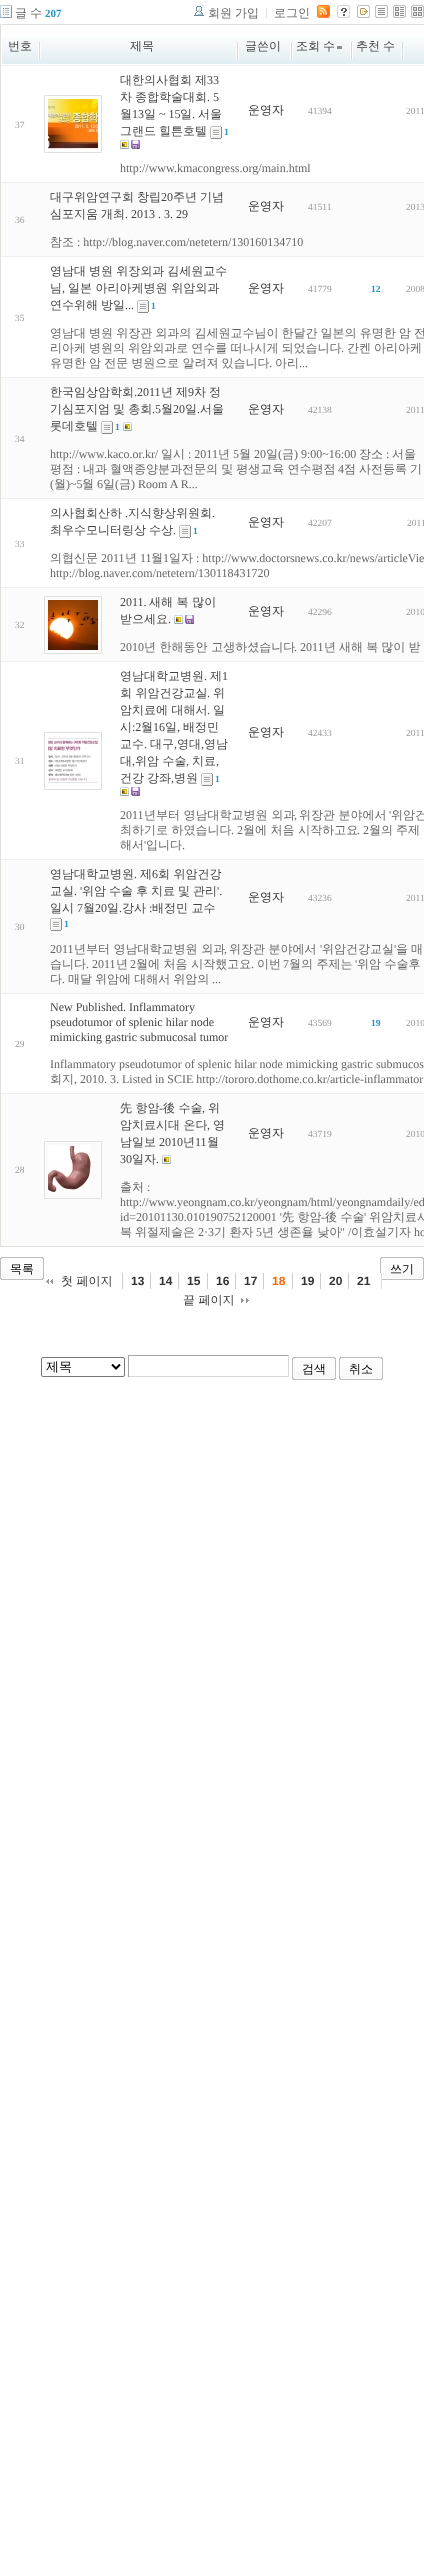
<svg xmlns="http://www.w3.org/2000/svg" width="424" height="2556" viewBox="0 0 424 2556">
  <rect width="100%" height="100%" fill="#fff"/>
  <image x="0" y="5" width="12" height="13" href="img/1.png"/>
  <image x="194" y="6" width="10" height="10" href="img/2.png"/>
  <path d="M266 8h1v10H266z" fill="#e0e0e0"/>
  <image x="317" y="5" width="13" height="13" href="img/3.png"/>
  <image x="337" y="5" width="13" height="13" href="img/4.png"/>
  <image x="357" y="5" width="13" height="13" href="img/5.png"/>
  <image x="375" y="5" width="13" height="13" href="img/6.png"/>
  <image x="393" y="5" width="13" height="13" href="img/7.png"/>
  <image x="411" y="5" width="13" height="13" href="img/8.png"/>
  <path d="M0 1246h424v1H0z" fill="#e0e1db"/>
  <path d="M0 24h1v1223H0z" fill="#e0e1db"/>
  <image x="2" y="37" width="36" height="27" href="img/9.png"/>
  <path d="M1 24h423v1H1z" fill="#e0e1db"/>
  <path d="M1 24h1v1H1z" fill="#fff"/>
  <image x="38" y="37" width="198" height="27" href="img/10.png"/>
  <image x="236" y="37" width="54" height="27" href="img/11.png"/>
  <image x="290" y="37" width="60" height="27" href="img/12.png"/>
  <path d="M337 46h5v3H337z" fill="#8c8f86"/>
  <image x="350" y="37" width="51" height="27" href="img/13.png"/>
  <image x="401" y="37" width="23" height="27" href="img/14.png"/>
  <path d="M44.5 95.5h57v57H44.5z" fill="none" stroke="#e0e1db"/>
  <image x="48" y="99" width="50" height="50" href="img/15.png"/>
  <image x="210" y="126" width="12" height="13" href="img/16.png"/>
  <image x="120" y="140" width="9" height="9" href="img/17.png"/>
  <image x="131" y="140" width="9" height="9" href="img/18.png"/>
  <path d="M1 65h423v1H1z" fill="#eff0ed"/>
  <path d="M1 183h423v73H1z" fill="#fbfbfb"/>
  <path d="M1 182h423v1H1z" fill="#eff0ed"/>
  <image x="137" y="300" width="12" height="13" href="img/16.png"/>
  <path d="M1 256h423v1H1z" fill="#eff0ed"/>
  <path d="M1 378h423v120H1z" fill="#fbfbfb"/>
  <image x="101" y="421" width="12" height="13" href="img/19.png"/>
  <image x="123" y="422" width="9" height="9" href="img/17.png"/>
  <path d="M1 377h423v1H1z" fill="#eff0ed"/>
  <image x="179" y="525" width="12" height="13" href="img/16.png"/>
  <path d="M1 498h423v1H1z" fill="#eff0ed"/>
  <path d="M1 588h423v73H1z" fill="#fbfbfb"/>
  <path d="M44.5 596.5h57v57H44.5z" fill="none" stroke="#e0e1db"/>
  <image x="48" y="600" width="50" height="50" href="img/20.png"/>
  <image x="174" y="615" width="9" height="9" href="img/17.png"/>
  <image x="185" y="615" width="9" height="9" href="img/21.png"/>
  <path d="M1 587h423v1H1z" fill="#eff0ed"/>
  <path d="M1 661h423v1H1z" fill="#eff0ed"/>
  <path d="M44.5 732.5h57v57H44.5z" fill="none" stroke="#e0e1db"/>
  <image x="48" y="736" width="50" height="47" href="img/22.png"/>
  <image x="201" y="773" width="12" height="13" href="img/16.png"/>
  <image x="120" y="787" width="9" height="9" href="img/17.png"/>
  <image x="131" y="787" width="9" height="9" href="img/18.png"/>
  <path d="M1 860h423v133H1z" fill="#fbfbfb"/>
  <image x="50" y="918" width="12" height="13" href="img/19.png"/>
  <path d="M1 859h423v1H1z" fill="#eff0ed"/>
  <path d="M1 993h423v1H1z" fill="#eff0ed"/>
  <path d="M1 1094h423v152H1z" fill="#fbfbfb"/>
  <image x="162" y="1155" width="9" height="9" href="img/17.png"/>
  <path d="M1 1093h423v1H1z" fill="#eff0ed"/>
  <path d="M44.5 1141.5h57v57H44.5z" fill="none" stroke="#e0e1db"/>
  <image x="48" y="1145" width="43" height="47" href="img/23.png"/>
  <image x="0" y="1257" width="42" height="23" href="img/24.png"/>
  <image x="42" y="1257" width="2" height="23" href="img/25.png"/>
  <image x="380" y="1257" width="42" height="23" href="img/24.png"/>
  <image x="422" y="1257" width="2" height="23" href="img/25.png"/>
  <image x="46" y="1279" width="7" height="5" href="img/26.png"/>
  <path d="M122 1273h1v16H122z" fill="#ccc"/>
  <path d="M150 1273h1v16H150z" fill="#ccc"/>
  <path d="M178 1273h1v16H178z" fill="#ccc"/>
  <path d="M207 1273h1v16H207z" fill="#ccc"/>
  <path d="M235 1273h1v16H235z" fill="#ccc"/>
  <path d="M263 1273h1v16H263z" fill="#ccc"/>
  <path d="M292 1273h1v16H292z" fill="#ccc"/>
  <path d="M320 1273h1v16H320z" fill="#ccc"/>
  <path d="M380 1273h1v6H380z" fill="#fff"/>
  <path d="M381 1273h1v16H381z" fill="#ddd"/>
  <path d="M348 1273h1v16H348z" fill="#ccc"/>
  <image x="241" y="1298" width="8" height="5" href="img/27.png"/>
  <rect x="41.5" y="1357.5" width="83" height="19" rx="1.5" fill="none" stroke="#767676"/>
  <path d="M112 1364.5L116 1368.5L120 1364.5" fill="none" stroke="#000" stroke-width="2"/>
  <path d="M128 1355h161v1H128z" fill="#a6a6a6"/>
  <path d="M288 1355h1v22H288z" fill="#d8d8d8"/>
  <path d="M128 1376h161v1H128z" fill="#d8d8d8"/>
  <path d="M128 1355h1v22H128z" fill="#a6a6a6"/>
  <image x="292" y="1357" width="42" height="23" href="img/24.png"/>
  <image x="334" y="1357" width="2" height="23" href="img/25.png"/>
  <image x="339" y="1357" width="42" height="23" href="img/24.png"/>
  <image x="381" y="1357" width="2" height="23" href="img/25.png"/>
  <text x="15" y="17" word-spacing="-0.5" font-family="WenQuanYi Zen Hei" font-size="12" font-weight="500" fill="#666">글 수</text>
  <text x="45" y="17" font-family="Liberation Serif" font-size="11" font-weight="bold" fill="#2895c0">207</text>
  <g font-family="WenQuanYi Zen Hei" font-size="12" font-weight="500" fill="#666">
    <text x="208" y="17" word-spacing="-0.5">회원 가입</text>
    <text x="274" y="17">로그인</text>
  </g>
  <g font-family="WenQuanYi Zen Hei" font-size="12" font-weight="500" fill="#3e3f3e">
    <text x="8" y="50">번호</text>
    <text x="130" y="50">제목</text>
    <text x="245" y="50">글쓴이</text>
    <text x="296" y="50" word-spacing="-0.5">조회 수</text>
    <text x="356" y="50" word-spacing="-0.5">추천 수</text>
  </g>
  <text x="120" y="84" word-spacing="-0.5" font-family="WenQuanYi Zen Hei" font-size="12" font-weight="500" fill="#444">대한의사협회 제</text>
  <text x="207" y="84" font-family="Liberation Serif" font-size="12" fill="#444">33</text>
  <g font-family="WenQuanYi Zen Hei" font-size="12" font-weight="500" fill="#444">
    <text x="120" y="101">차</text>
    <text x="135" y="101">종합학술대회</text>
  </g>
  <text x="207" y="101" font-family="Liberation Serif" font-size="12" fill="#444">. 5</text>
  <text x="120" y="118" font-family="WenQuanYi Zen Hei" font-size="12" font-weight="500" fill="#444">월</text>
  <text x="132" y="118" font-family="Liberation Serif" font-size="12" fill="#444">13</text>
  <text x="144" y="118" font-family="WenQuanYi Zen Hei" font-size="12" font-weight="500" fill="#444">일</text>
  <text x="159" y="118" font-family="Liberation Serif" font-size="12" fill="#444">~ 15</text>
  <text x="180" y="118" font-family="WenQuanYi Zen Hei" font-size="12" font-weight="500" fill="#444">일</text>
  <text x="192" y="118" font-family="Liberation Serif" font-size="12" fill="#444">.</text>
  <g font-family="WenQuanYi Zen Hei" font-size="12" font-weight="500" fill="#444">
    <text x="198" y="118">서울</text>
    <text x="120" y="135" word-spacing="-0.5">그랜드 힐튼호텔</text>
  </g>
  <text x="224" y="135" font-family="Liberation Serif" font-size="9.5" font-weight="bold" fill="#2895c0">1</text>
  <text x="248" y="114" font-family="WenQuanYi Zen Hei" font-size="12" font-weight="500" fill="#333">운영자</text>
  <g font-family="Liberation Serif" font-size="9.5" fill="#999">
    <text x="308" y="114">41394</text>
    <text x="406" y="114">2011</text>
    <text x="15" y="128">37</text>
  </g>
  <text x="120" y="172" font-family="Liberation Serif" font-size="12" fill="#666">http://www.kmacongress.org/main.html</text>
  <text x="50" y="201" word-spacing="-0.5" font-family="WenQuanYi Zen Hei" font-size="12" font-weight="500" fill="#444">대구위암연구회 창립</text>
  <text x="161" y="201" font-family="Liberation Serif" font-size="12" fill="#444">20</text>
  <g font-family="WenQuanYi Zen Hei" font-size="12" font-weight="500" fill="#444">
    <text x="173" y="201" word-spacing="-0.5">주년 기념</text>
    <text x="50" y="218">심포지움</text>
    <text x="101" y="218">개최</text>
  </g>
  <text x="125" y="218" font-family="Liberation Serif" font-size="12" fill="#444">. 2013 . 3. 29</text>
  <text x="248" y="210" font-family="WenQuanYi Zen Hei" font-size="12" font-weight="500" fill="#333">운영자</text>
  <g font-family="Liberation Serif" font-size="9.5" fill="#999">
    <text x="308" y="210">41511</text>
    <text x="406" y="210">2013</text>
    <text x="15" y="223">36</text>
  </g>
  <text x="50" y="246" font-family="WenQuanYi Zen Hei" font-size="12" font-weight="500" fill="#666">참조</text>
  <text x="77" y="246" font-family="Liberation Serif" font-size="12" fill="#666">: http://blog.naver.com/netetern/130160134710</text>
  <g font-family="WenQuanYi Zen Hei" font-size="12" font-weight="500" fill="#444">
    <text x="50" y="275" word-spacing="-0.5">영남대 병원 위장외과 김세원교수</text>
    <text x="50" y="292">님</text>
  </g>
  <text x="62" y="292" font-family="Liberation Serif" font-size="12" fill="#444">,</text>
  <g font-family="WenQuanYi Zen Hei" font-size="12" font-weight="500" fill="#444">
    <text x="68" y="292">일본 아리아케병원 위암외과</text>
    <text x="50" y="309" word-spacing="-0.5">연수위해 방일</text>
  </g>
  <text x="125" y="309" font-family="Liberation Serif" font-size="12" fill="#444">...</text>
  <text x="151" y="309" font-family="Liberation Serif" font-size="9.5" font-weight="bold" fill="#2895c0">1</text>
  <text x="248" y="292" font-family="WenQuanYi Zen Hei" font-size="12" font-weight="500" fill="#333">운영자</text>
  <text x="308" y="292" font-family="Liberation Serif" font-size="9.5" fill="#999">41779</text>
  <text x="371" y="292" font-family="Liberation Serif" font-size="9.5" font-weight="bold" fill="#2895c0">12</text>
  <g font-family="Liberation Serif" font-size="9.5" fill="#999">
    <text x="406" y="292">2008</text>
    <text x="15" y="321">35</text>
  </g>
  <g font-family="WenQuanYi Zen Hei" font-size="12" font-weight="500" fill="#666">
    <text x="50" y="337" word-spacing="-0.5">영남대 병원 위장관 외과의 김세원교수님이 한달간 일본의 유명한 암 전</text>
    <text x="50" y="352" word-spacing="-0.5">리아케 병원의 위암외과로 연수를 떠나시게 되었습니다</text>
  </g>
  <text x="341" y="352" font-family="Liberation Serif" font-size="12" fill="#666">.</text>
  <g font-family="WenQuanYi Zen Hei" font-size="12" font-weight="500" fill="#666">
    <text x="347" y="352" word-spacing="-0.5">간켄 아리아케</text>
    <text x="50" y="367" word-spacing="-0.5">유명한 암 전문 병원으로 알려져 있습니다</text>
  </g>
  <text x="269" y="367" font-family="Liberation Serif" font-size="12" fill="#666">.</text>
  <text x="275" y="367" font-family="WenQuanYi Zen Hei" font-size="12" font-weight="500" fill="#666">아리</text>
  <text x="299" y="367" font-family="Liberation Serif" font-size="12" fill="#666">...</text>
  <text x="50" y="396" font-family="WenQuanYi Zen Hei" font-size="12" font-weight="500" fill="#444">한국임상암학회</text>
  <text x="134" y="396" font-family="Liberation Serif" font-size="12" fill="#444">.2011</text>
  <text x="161" y="396" word-spacing="-0.5" font-family="WenQuanYi Zen Hei" font-size="12" font-weight="500" fill="#444">년 제</text>
  <text x="188" y="396" font-family="Liberation Serif" font-size="12" fill="#444">9</text>
  <g font-family="WenQuanYi Zen Hei" font-size="12" font-weight="500" fill="#444">
    <text x="194" y="396" word-spacing="-0.5">차 정</text>
    <text x="50" y="413" word-spacing="-0.5">기심포지엄 및 총회</text>
  </g>
  <text x="152" y="413" font-family="Liberation Serif" font-size="12" fill="#444">.5</text>
  <text x="161" y="413" font-family="WenQuanYi Zen Hei" font-size="12" font-weight="500" fill="#444">월</text>
  <text x="173" y="413" font-family="Liberation Serif" font-size="12" fill="#444">20</text>
  <text x="185" y="413" font-family="WenQuanYi Zen Hei" font-size="12" font-weight="500" fill="#444">일</text>
  <text x="197" y="413" font-family="Liberation Serif" font-size="12" fill="#444">.</text>
  <g font-family="WenQuanYi Zen Hei" font-size="12" font-weight="500" fill="#444">
    <text x="200" y="413">서울</text>
    <text x="50" y="430">롯데호텔</text>
  </g>
  <text x="115" y="430" font-family="Liberation Serif" font-size="9.5" font-weight="bold" fill="#2895c0">1</text>
  <text x="248" y="413" font-family="WenQuanYi Zen Hei" font-size="12" font-weight="500" fill="#333">운영자</text>
  <g font-family="Liberation Serif" font-size="9.5" fill="#999">
    <text x="308" y="413">42138</text>
    <text x="406" y="413">2011</text>
    <text x="15" y="442">34</text>
  </g>
  <text x="50" y="458" font-family="Liberation Serif" font-size="12" fill="#666">http://www.kaco.or.kr/</text>
  <text x="161" y="458" font-family="WenQuanYi Zen Hei" font-size="12" font-weight="500" fill="#666">일시</text>
  <text x="188" y="458" font-family="Liberation Serif" font-size="12" fill="#666">: 2011</text>
  <text x="218" y="458" font-family="WenQuanYi Zen Hei" font-size="12" font-weight="500" fill="#666">년</text>
  <text x="233" y="458" font-family="Liberation Serif" font-size="12" fill="#666">5</text>
  <text x="239" y="458" font-family="WenQuanYi Zen Hei" font-size="12" font-weight="500" fill="#666">월</text>
  <text x="254" y="458" font-family="Liberation Serif" font-size="12" fill="#666">20</text>
  <text x="266" y="458" font-family="WenQuanYi Zen Hei" font-size="12" font-weight="500" fill="#666">일</text>
  <text x="278" y="458" font-family="Liberation Serif" font-size="12" fill="#666">(</text>
  <text x="282" y="458" font-family="WenQuanYi Zen Hei" font-size="12" font-weight="500" fill="#666">금</text>
  <text x="294" y="458" font-family="Liberation Serif" font-size="12" fill="#666">) 9:00~16:00</text>
  <text x="359" y="458" font-family="WenQuanYi Zen Hei" font-size="12" font-weight="500" fill="#666">장소</text>
  <text x="386" y="458" font-family="Liberation Serif" font-size="12" fill="#666">:</text>
  <g font-family="WenQuanYi Zen Hei" font-size="12" font-weight="500" fill="#666">
    <text x="392" y="458">서울</text>
    <text x="50" y="473">평점</text>
  </g>
  <text x="77" y="473" font-family="Liberation Serif" font-size="12" fill="#666">:</text>
  <text x="83" y="473" word-spacing="-0.5" font-family="WenQuanYi Zen Hei" font-size="12" font-weight="500" fill="#666">내과 혈액종양분과전문의 및 평생교육 연수평점</text>
  <text x="338" y="473" font-family="Liberation Serif" font-size="12" fill="#666">4</text>
  <g font-family="WenQuanYi Zen Hei" font-size="12" font-weight="500" fill="#666">
    <text x="344" y="473">점</text>
    <text x="359" y="473">사전등록</text>
    <text x="410" y="473">기</text>
  </g>
  <text x="50" y="488" font-family="Liberation Serif" font-size="12" fill="#666">(</text>
  <text x="54" y="488" font-family="WenQuanYi Zen Hei" font-size="12" font-weight="500" fill="#666">월</text>
  <text x="66" y="488" font-family="Liberation Serif" font-size="12" fill="#666">)~5</text>
  <text x="82" y="488" font-family="WenQuanYi Zen Hei" font-size="12" font-weight="500" fill="#666">월</text>
  <text x="97" y="488" font-family="Liberation Serif" font-size="12" fill="#666">6</text>
  <text x="103" y="488" font-family="WenQuanYi Zen Hei" font-size="12" font-weight="500" fill="#666">일</text>
  <text x="115" y="488" font-family="Liberation Serif" font-size="12" fill="#666">(</text>
  <text x="119" y="488" font-family="WenQuanYi Zen Hei" font-size="12" font-weight="500" fill="#666">금</text>
  <text x="131" y="488" font-family="Liberation Serif" font-size="12" fill="#666">) Room A R...</text>
  <text x="50" y="517" font-family="WenQuanYi Zen Hei" font-size="12" font-weight="500" fill="#444">의사협회산하</text>
  <text x="125" y="517" font-family="Liberation Serif" font-size="12" fill="#444">.</text>
  <text x="128" y="517" font-family="WenQuanYi Zen Hei" font-size="12" font-weight="500" fill="#444">지식향상위원회</text>
  <text x="212" y="517" font-family="Liberation Serif" font-size="12" fill="#444">.</text>
  <text x="50" y="534" word-spacing="-0.5" font-family="WenQuanYi Zen Hei" font-size="12" font-weight="500" fill="#444">최우수모니터링상 수상</text>
  <text x="173" y="534" font-family="Liberation Serif" font-size="12" fill="#444">.</text>
  <text x="193" y="534" font-family="Liberation Serif" font-size="9.5" font-weight="bold" fill="#2895c0">1</text>
  <text x="248" y="526" font-family="WenQuanYi Zen Hei" font-size="12" font-weight="500" fill="#333">운영자</text>
  <g font-family="Liberation Serif" font-size="9.5" fill="#999">
    <text x="308" y="526">42207</text>
    <text x="407" y="526">2011</text>
    <text x="15" y="547">33</text>
  </g>
  <text x="50" y="562" font-family="WenQuanYi Zen Hei" font-size="12" font-weight="500" fill="#666">의협신문</text>
  <text x="101" y="562" font-family="Liberation Serif" font-size="12" fill="#666">2011</text>
  <text x="125" y="562" font-family="WenQuanYi Zen Hei" font-size="12" font-weight="500" fill="#666">년</text>
  <text x="140" y="562" font-family="Liberation Serif" font-size="12" fill="#666">11</text>
  <text x="151" y="562" font-family="WenQuanYi Zen Hei" font-size="12" font-weight="500" fill="#666">월</text>
  <text x="163" y="562" font-family="Liberation Serif" font-size="12" fill="#666">1</text>
  <text x="169" y="562" font-family="WenQuanYi Zen Hei" font-size="12" font-weight="500" fill="#666">일자</text>
  <g font-family="Liberation Serif" font-size="12" fill="#666">
    <text x="196" y="562">: http://www.doctorsnews.co.kr/news/articleVie</text>
    <text x="50" y="577">http://blog.naver.com/netetern/130118431720</text>
  </g>
  <text x="120" y="606" font-family="Liberation Serif" font-size="12" fill="#444">2011.</text>
  <g font-family="WenQuanYi Zen Hei" font-size="12" font-weight="500" fill="#444">
    <text x="149" y="606">새해 복 많이</text>
    <text x="120" y="623">받으세요</text>
  </g>
  <text x="168" y="623" font-family="Liberation Serif" font-size="12" fill="#444">.</text>
  <text x="248" y="615" font-family="WenQuanYi Zen Hei" font-size="12" font-weight="500" fill="#333">운영자</text>
  <g font-family="Liberation Serif" font-size="9.5" fill="#999">
    <text x="308" y="615">42296</text>
    <text x="406" y="615">2010</text>
    <text x="15" y="628">32</text>
  </g>
  <text x="120" y="651" font-family="Liberation Serif" font-size="12" fill="#666">2010</text>
  <text x="144" y="651" font-family="WenQuanYi Zen Hei" font-size="12" font-weight="500" fill="#666">년 한해동안 고생하셨습니다</text>
  <g font-family="Liberation Serif" font-size="12" fill="#666">
    <text x="294" y="651">.</text>
    <text x="300" y="651">2011</text>
  </g>
  <text x="324" y="651" word-spacing="-0.5" font-family="WenQuanYi Zen Hei" font-size="12" font-weight="500" fill="#666">년 새해 복 많이 받</text>
  <text x="15" y="764" font-family="Liberation Serif" font-size="9.5" fill="#999">31</text>
  <text x="120" y="680" font-family="WenQuanYi Zen Hei" font-size="12" font-weight="500" fill="#444">영남대학교병원</text>
  <text x="204" y="680" font-family="Liberation Serif" font-size="12" fill="#444">.</text>
  <text x="210" y="680" font-family="WenQuanYi Zen Hei" font-size="12" font-weight="500" fill="#444">제</text>
  <text x="222" y="680" font-family="Liberation Serif" font-size="12" fill="#444">1</text>
  <text x="120" y="697" font-family="WenQuanYi Zen Hei" font-size="12" font-weight="500" fill="#444">회 위암건강교실</text>
  <text x="207" y="697" font-family="Liberation Serif" font-size="12" fill="#444">.</text>
  <g font-family="WenQuanYi Zen Hei" font-size="12" font-weight="500" fill="#444">
    <text x="213" y="697">위</text>
    <text x="120" y="714">암치료에 대해서</text>
  </g>
  <text x="207" y="714" font-family="Liberation Serif" font-size="12" fill="#444">.</text>
  <g font-family="WenQuanYi Zen Hei" font-size="12" font-weight="500" fill="#444">
    <text x="213" y="714">일</text>
    <text x="120" y="731">시</text>
  </g>
  <text x="132" y="731" font-family="Liberation Serif" font-size="12" fill="#444">:2</text>
  <text x="141" y="731" font-family="WenQuanYi Zen Hei" font-size="12" font-weight="500" fill="#444">월</text>
  <text x="153" y="731" font-family="Liberation Serif" font-size="12" fill="#444">16</text>
  <text x="165" y="731" font-family="WenQuanYi Zen Hei" font-size="12" font-weight="500" fill="#444">일</text>
  <text x="177" y="731" font-family="Liberation Serif" font-size="12" fill="#444">,</text>
  <g font-family="WenQuanYi Zen Hei" font-size="12" font-weight="500" fill="#444">
    <text x="183" y="731">배정민</text>
    <text x="120" y="748">교수</text>
  </g>
  <text x="144" y="748" font-family="Liberation Serif" font-size="12" fill="#444">.</text>
  <text x="150" y="748" font-family="WenQuanYi Zen Hei" font-size="12" font-weight="500" fill="#444">대구</text>
  <text x="174" y="748" font-family="Liberation Serif" font-size="12" fill="#444">,</text>
  <text x="177" y="748" font-family="WenQuanYi Zen Hei" font-size="12" font-weight="500" fill="#444">영대</text>
  <text x="201" y="748" font-family="Liberation Serif" font-size="12" fill="#444">,</text>
  <g font-family="WenQuanYi Zen Hei" font-size="12" font-weight="500" fill="#444">
    <text x="204" y="748">영남</text>
    <text x="120" y="765">대</text>
  </g>
  <text x="132" y="765" font-family="Liberation Serif" font-size="12" fill="#444">,</text>
  <text x="135" y="765" font-family="WenQuanYi Zen Hei" font-size="12" font-weight="500" fill="#444">위암 수술</text>
  <text x="186" y="765" font-family="Liberation Serif" font-size="12" fill="#444">,</text>
  <text x="192" y="765" font-family="WenQuanYi Zen Hei" font-size="12" font-weight="500" fill="#444">치료</text>
  <text x="216" y="765" font-family="Liberation Serif" font-size="12" fill="#444">,</text>
  <text x="120" y="782" word-spacing="-0.5" font-family="WenQuanYi Zen Hei" font-size="12" font-weight="500" fill="#444">건강 강좌</text>
  <text x="171" y="782" font-family="Liberation Serif" font-size="12" fill="#444">,</text>
  <text x="174" y="782" font-family="WenQuanYi Zen Hei" font-size="12" font-weight="500" fill="#444">병원</text>
  <text x="215" y="782" font-family="Liberation Serif" font-size="9.5" font-weight="bold" fill="#2895c0">1</text>
  <text x="248" y="736" font-family="WenQuanYi Zen Hei" font-size="12" font-weight="500" fill="#333">운영자</text>
  <g font-family="Liberation Serif" font-size="9.5" fill="#999">
    <text x="308" y="736">42433</text>
    <text x="406" y="736">2011</text>
  </g>
  <text x="120" y="819" font-family="Liberation Serif" font-size="12" fill="#666">2011</text>
  <g font-family="WenQuanYi Zen Hei" font-size="12" font-weight="500" fill="#666">
    <text x="144" y="819">년부터 영남대학교병원 외과</text>
    <text x="299" y="819">위장관 분야에서</text>
  </g>
  <text x="389" y="819" font-family="Liberation Serif" font-size="12" fill="#666">'</text>
  <text x="391" y="819" font-family="WenQuanYi Zen Hei" font-size="12" font-weight="500" fill="#666">위암건</text>
  <text x="294" y="819" font-family="Liberation Serif" font-size="12" fill="#666">,</text>
  <text x="120" y="834" font-family="WenQuanYi Zen Hei" font-size="12" font-weight="500" fill="#666">최하기로 하였습니다</text>
  <text x="231" y="834" font-family="Liberation Serif" font-size="12" fill="#666">. 2</text>
  <text x="243" y="834" font-family="WenQuanYi Zen Hei" font-size="12" font-weight="500" fill="#666">월에 처음 시작하고요</text>
  <g font-family="Liberation Serif" font-size="12" fill="#666">
    <text x="357" y="834">.</text>
    <text x="363" y="834">2</text>
  </g>
  <g font-family="WenQuanYi Zen Hei" font-size="12" font-weight="500" fill="#666">
    <text x="369" y="834" word-spacing="-0.5">월의 주제</text>
    <text x="120" y="849">해서</text>
  </g>
  <text x="144" y="849" font-family="Liberation Serif" font-size="12" fill="#666">'</text>
  <text x="146" y="849" font-family="WenQuanYi Zen Hei" font-size="12" font-weight="500" fill="#666">입니다</text>
  <text x="182" y="849" font-family="Liberation Serif" font-size="12" fill="#666">.</text>
  <text x="50" y="878" font-family="WenQuanYi Zen Hei" font-size="12" font-weight="500" fill="#444">영남대학교병원</text>
  <text x="134" y="878" font-family="Liberation Serif" font-size="12" fill="#444">.</text>
  <text x="140" y="878" font-family="WenQuanYi Zen Hei" font-size="12" font-weight="500" fill="#444">제</text>
  <text x="152" y="878" font-family="Liberation Serif" font-size="12" fill="#444">6</text>
  <g font-family="WenQuanYi Zen Hei" font-size="12" font-weight="500" fill="#444">
    <text x="158" y="878">회 위암건강</text>
    <text x="50" y="895">교실</text>
  </g>
  <text x="74" y="895" font-family="Liberation Serif" font-size="12" fill="#444">. '</text>
  <g font-family="WenQuanYi Zen Hei" font-size="12" font-weight="500" fill="#444">
    <text x="82" y="895">위암</text>
    <text x="109" y="895">수술</text>
    <text x="136" y="895">후</text>
    <text x="151" y="895">치료</text>
    <text x="178" y="895">및</text>
    <text x="193" y="895">관리</text>
  </g>
  <text x="217" y="895" font-family="Liberation Serif" font-size="12" fill="#444">'.</text>
  <text x="50" y="912" font-family="WenQuanYi Zen Hei" font-size="12" font-weight="500" fill="#444">일시</text>
  <text x="77" y="912" font-family="Liberation Serif" font-size="12" fill="#444">7</text>
  <text x="83" y="912" font-family="WenQuanYi Zen Hei" font-size="12" font-weight="500" fill="#444">월</text>
  <text x="95" y="912" font-family="Liberation Serif" font-size="12" fill="#444">20</text>
  <text x="107" y="912" font-family="WenQuanYi Zen Hei" font-size="12" font-weight="500" fill="#444">일</text>
  <text x="119" y="912" font-family="Liberation Serif" font-size="12" fill="#444">.</text>
  <text x="122" y="912" font-family="WenQuanYi Zen Hei" font-size="12" font-weight="500" fill="#444">강사</text>
  <text x="149" y="912" font-family="Liberation Serif" font-size="12" fill="#444">:</text>
  <text x="152" y="912" font-family="WenQuanYi Zen Hei" font-size="12" font-weight="500" fill="#444">배정민 교수</text>
  <text x="64" y="927" font-family="Liberation Serif" font-size="9.5" font-weight="bold" fill="#2895c0">1</text>
  <text x="248" y="901" font-family="WenQuanYi Zen Hei" font-size="12" font-weight="500" fill="#333">운영자</text>
  <g font-family="Liberation Serif" font-size="9.5" fill="#999">
    <text x="308" y="901">43236</text>
    <text x="406" y="901">2011</text>
    <text x="15" y="930">30</text>
  </g>
  <text x="50" y="953" font-family="Liberation Serif" font-size="12" fill="#666">2011</text>
  <g font-family="WenQuanYi Zen Hei" font-size="12" font-weight="500" fill="#666">
    <text x="74" y="953">년부터 영남대학교병원 외과</text>
    <text x="229" y="953">위장관 분야에서</text>
  </g>
  <text x="320" y="953" font-family="Liberation Serif" font-size="12" fill="#666">'</text>
  <text x="322" y="953" font-family="WenQuanYi Zen Hei" font-size="12" font-weight="500" fill="#666">위암건강교실</text>
  <text x="394" y="953" font-family="Liberation Serif" font-size="12" fill="#666">'</text>
  <text x="396" y="953" word-spacing="-0.5" font-family="WenQuanYi Zen Hei" font-size="12" font-weight="500" fill="#666">을 매</text>
  <text x="224" y="953" font-family="Liberation Serif" font-size="12" fill="#666">,</text>
  <text x="50" y="968" font-family="WenQuanYi Zen Hei" font-size="12" font-weight="500" fill="#666">습니다</text>
  <text x="86" y="968" font-family="Liberation Serif" font-size="12" fill="#666">. 2011</text>
  <text x="116" y="968" font-family="WenQuanYi Zen Hei" font-size="12" font-weight="500" fill="#666">년</text>
  <text x="130" y="968" font-family="Liberation Serif" font-size="12" fill="#666">2</text>
  <g font-family="WenQuanYi Zen Hei" font-size="12" font-weight="500" fill="#666">
    <text x="136" y="968">월에 처음 시작했고요</text>
    <text x="257" y="968">이번</text>
  </g>
  <text x="283" y="968" font-family="Liberation Serif" font-size="12" fill="#666">7</text>
  <text x="289" y="968" font-family="WenQuanYi Zen Hei" font-size="12" font-weight="500" fill="#666">월의 주제는</text>
  <text x="355" y="968" font-family="Liberation Serif" font-size="12" fill="#666">'</text>
  <text x="357" y="968" font-family="WenQuanYi Zen Hei" font-size="12" font-weight="500" fill="#666">위암 수술후</text>
  <text x="251" y="968" font-family="Liberation Serif" font-size="12" fill="#666">.</text>
  <text x="50" y="983" font-family="WenQuanYi Zen Hei" font-size="12" font-weight="500" fill="#666">다</text>
  <text x="62" y="983" font-family="Liberation Serif" font-size="12" fill="#666">.</text>
  <text x="68" y="983" word-spacing="-0.5" font-family="WenQuanYi Zen Hei" font-size="12" font-weight="500" fill="#666">매달 위암에 대해서 위암의</text>
  <text x="212" y="983" font-family="Liberation Serif" font-size="12" fill="#666">...</text>
  <g font-family="Liberation Serif" font-size="12" fill="#444">
    <text x="50" y="1011">New Published. Inflammatory</text>
    <text x="50" y="1026">pseudotumor of splenic hilar node</text>
    <text x="50" y="1041">mimicking gastric submucosal tumor</text>
  </g>
  <text x="248" y="1026" font-family="WenQuanYi Zen Hei" font-size="12" font-weight="500" fill="#333">운영자</text>
  <text x="308" y="1026" font-family="Liberation Serif" font-size="9.5" fill="#999">43569</text>
  <text x="371" y="1026" font-family="Liberation Serif" font-size="9.5" font-weight="bold" fill="#2895c0">19</text>
  <g font-family="Liberation Serif" font-size="9.5" fill="#999">
    <text x="406" y="1026">2010</text>
    <text x="15" y="1047">29</text>
  </g>
  <text x="50" y="1068" font-family="Liberation Serif" font-size="12" fill="#666">Inflammatory pseudotumor of splenic hilar node mimicking gastric submucos</text>
  <text x="50" y="1083" font-family="WenQuanYi Zen Hei" font-size="12" font-weight="500" fill="#666">회지</text>
  <text x="74" y="1083" font-family="Liberation Serif" font-size="12" fill="#666">, 2010. 3. Listed in SCIE http://tororo.dothome.co.kr/article-inflammator</text>
  <text x="120" y="1112" font-family="WenQuanYi Zen Hei" font-size="12" font-weight="500" fill="#444">先 항암</text>
  <text x="159" y="1112" font-family="Liberation Serif" font-size="12" fill="#444">-</text>
  <g font-family="WenQuanYi Zen Hei" font-size="12" font-weight="500" fill="#444">
    <text x="163" y="1112">後 수술</text>
    <text x="208" y="1112">위</text>
  </g>
  <text x="202" y="1112" font-family="Liberation Serif" font-size="12" fill="#444">,</text>
  <text x="120" y="1129" font-family="WenQuanYi Zen Hei" font-size="12" font-weight="500" fill="#444">암치료시대 온다</text>
  <text x="207" y="1129" font-family="Liberation Serif" font-size="12" fill="#444">,</text>
  <g font-family="WenQuanYi Zen Hei" font-size="12" font-weight="500" fill="#444">
    <text x="213" y="1129">영</text>
    <text x="120" y="1146">남일보</text>
  </g>
  <text x="159" y="1146" font-family="Liberation Serif" font-size="12" fill="#444">2010</text>
  <text x="183" y="1146" font-family="WenQuanYi Zen Hei" font-size="12" font-weight="500" fill="#444">년</text>
  <text x="195" y="1146" font-family="Liberation Serif" font-size="12" fill="#444">11</text>
  <text x="207" y="1146" font-family="WenQuanYi Zen Hei" font-size="12" font-weight="500" fill="#444">월</text>
  <text x="120" y="1163" font-family="Liberation Serif" font-size="12" fill="#444">30</text>
  <text x="132" y="1163" font-family="WenQuanYi Zen Hei" font-size="12" font-weight="500" fill="#444">일자</text>
  <text x="156" y="1163" font-family="Liberation Serif" font-size="12" fill="#444">.</text>
  <text x="248" y="1137" font-family="WenQuanYi Zen Hei" font-size="12" font-weight="500" fill="#333">운영자</text>
  <g font-family="Liberation Serif" font-size="9.5" fill="#999">
    <text x="308" y="1137">43719</text>
    <text x="406" y="1137">2010</text>
    <text x="15" y="1173">28</text>
  </g>
  <text x="120" y="1191" font-family="WenQuanYi Zen Hei" font-size="12" font-weight="500" fill="#666">출처</text>
  <g font-family="Liberation Serif" font-size="12" fill="#666">
    <text x="147" y="1191">:</text>
    <text x="120" y="1206">http://www.yeongnam.co.kr/yeongnam/html/yeongnamdaily/ed</text>
    <text x="120" y="1221">id=20101130.010190752120001 '</text>
  </g>
  <g font-family="WenQuanYi Zen Hei" font-size="12" font-weight="500" fill="#666">
    <text x="282" y="1221">先 항암</text>
    <text x="325" y="1221">後 수술</text>
  </g>
  <text x="364" y="1221" font-family="Liberation Serif" font-size="12" fill="#666">'</text>
  <text x="369" y="1221" font-family="WenQuanYi Zen Hei" font-size="12" font-weight="500" fill="#666">위암치료시</text>
  <text x="321" y="1221" font-family="Liberation Serif" font-size="12" fill="#666">-</text>
  <text x="120" y="1236" word-spacing="-0.5" font-family="WenQuanYi Zen Hei" font-size="12" font-weight="500" fill="#666">복 위절제술은</text>
  <text x="198" y="1236" font-family="Liberation Serif" font-size="12" fill="#666">2·3</text>
  <text x="214" y="1236" font-family="WenQuanYi Zen Hei" font-size="12" font-weight="500" fill="#666">기 환자</text>
  <text x="256" y="1236" font-family="Liberation Serif" font-size="12" fill="#666">5</text>
  <text x="262" y="1236" font-family="WenQuanYi Zen Hei" font-size="12" font-weight="500" fill="#666">년 생존율 낮아</text>
  <g font-family="Liberation Serif" font-size="12" fill="#666">
    <text x="340" y="1236">"</text>
    <text x="348" y="1236">/</text>
  </g>
  <text x="351" y="1236" font-family="WenQuanYi Zen Hei" font-size="12" font-weight="500" fill="#666">이효설기자</text>
  <text x="414" y="1236" font-family="Liberation Serif" font-size="12" fill="#666">ho</text>
  <g font-family="WenQuanYi Zen Hei" font-size="12" font-weight="500" fill="#000">
    <text x="10" y="1273">목록</text>
    <text x="390" y="1273">쓰기</text>
  </g>
  <text x="61" y="1285" font-family="WenQuanYi Zen Hei" font-size="12" font-weight="500" fill="#333">첫 페이지</text>
  <g font-family="Liberation Sans" font-size="12" font-weight="bold" fill="#333">
    <text x="131" y="1285">13</text>
    <text x="159" y="1285">14</text>
    <text x="187" y="1285">15</text>
    <text x="216" y="1285">16</text>
    <text x="244" y="1285">17</text>
  </g>
  <text x="272" y="1285" font-family="Liberation Sans" font-size="12" font-weight="bold" fill="#f60">18</text>
  <g font-family="Liberation Sans" font-size="12" font-weight="bold" fill="#333">
    <text x="301" y="1285">19</text>
    <text x="329" y="1285">20</text>
    <text x="357" y="1285">21</text>
  </g>
  <text x="183" y="1304" font-family="WenQuanYi Zen Hei" font-size="12" font-weight="500" fill="#333">끝 페이지</text>
  <text x="46" y="1371" font-family="WenQuanYi Zen Hei" font-size="13" font-weight="500" fill="#000">제목</text>
  <g font-family="WenQuanYi Zen Hei" font-size="12" font-weight="500" fill="#000">
    <text x="302" y="1373">검색</text>
    <text x="349" y="1373">취소</text>
  </g>
</svg>
